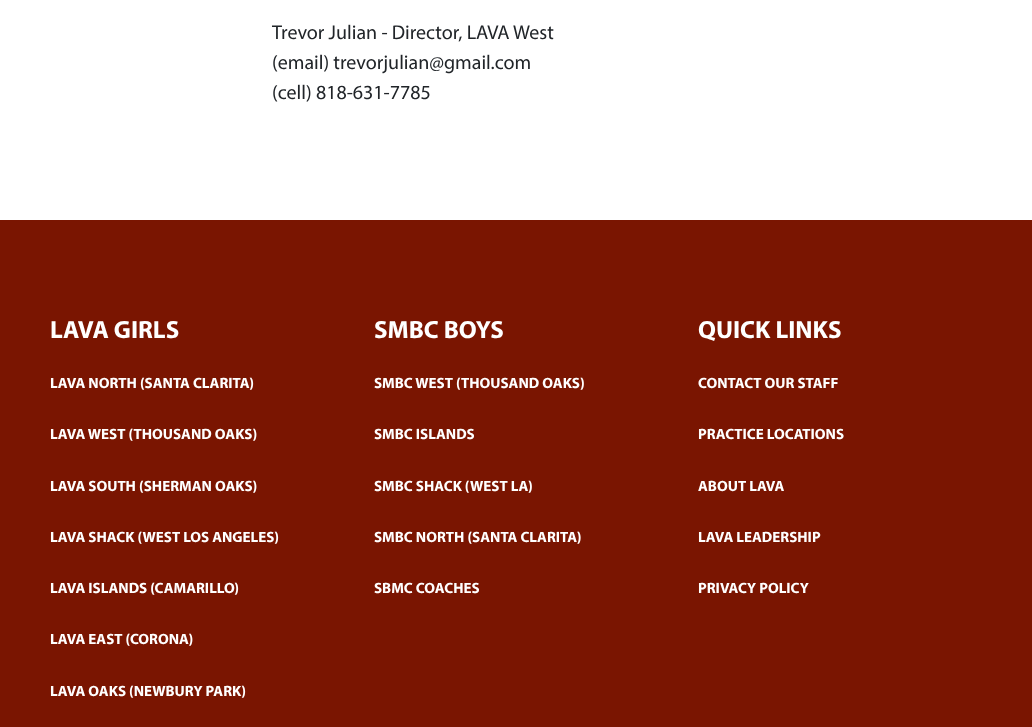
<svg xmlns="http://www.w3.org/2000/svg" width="1032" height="727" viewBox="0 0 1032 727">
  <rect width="100%" height="100%" fill="#fff"/>
  <path d="M0 220h1032v507H0z" fill="#7a1501"/>
  <g font-family="Myriad" font-size="20" fill="#212529">
    <text x="272" y="39">Trevor Julian - Director, LAVA West</text>
    <text x="272" y="69">(email) trevorjulian@gmail.com</text>
    <text x="272" y="99">(cell) 818-631-7785</text>
  </g>
  <text x="50" y="338" font-family="Myriad" font-size="25" font-weight="bold" fill="#fff">LAVA GIRLS</text>
  <g font-family="Myriad" font-size="15" font-weight="bold" fill="#fff">
    <text x="50" y="388">LAVA NORTH (SANTA CLARITA)</text>
    <text x="50" y="439">LAVA WEST (THOUSAND OAKS)</text>
    <text x="50" y="491">LAVA SOUTH (SHERMAN OAKS)</text>
    <text x="50" y="542">LAVA SHACK (WEST LOS ANGELES)</text>
    <text x="50" y="593">LAVA ISLANDS (CAMARILLO)</text>
    <text x="50" y="644">LAVA EAST (CORONA)</text>
    <text x="50" y="696">LAVA OAKS (NEWBURY PARK)</text>
  </g>
  <text x="374" y="338" font-family="Myriad" font-size="25" font-weight="bold" fill="#fff">SMBC BOYS</text>
  <g font-family="Myriad" font-size="15" font-weight="bold" fill="#fff">
    <text x="374" y="388">SMBC WEST (THOUSAND OAKS)</text>
    <text x="374" y="439">SMBC ISLANDS</text>
    <text x="374" y="491">SMBC SHACK (WEST LA)</text>
    <text x="374" y="542">SMBC NORTH (SANTA CLARITA)</text>
    <text x="374" y="593">SBMC COACHES</text>
  </g>
  <text x="698" y="338" font-family="Myriad" font-size="25" font-weight="bold" fill="#fff">QUICK LINKS</text>
  <g font-family="Myriad" font-size="15" font-weight="bold" fill="#fff">
    <text x="698" y="388">CONTACT OUR STAFF</text>
    <text x="698" y="439">PRACTICE LOCATIONS</text>
    <text x="698" y="491">ABOUT LAVA</text>
    <text x="698" y="542">LAVA LEADERSHIP</text>
    <text x="698" y="593">PRIVACY POLICY</text>
  </g>
</svg>
